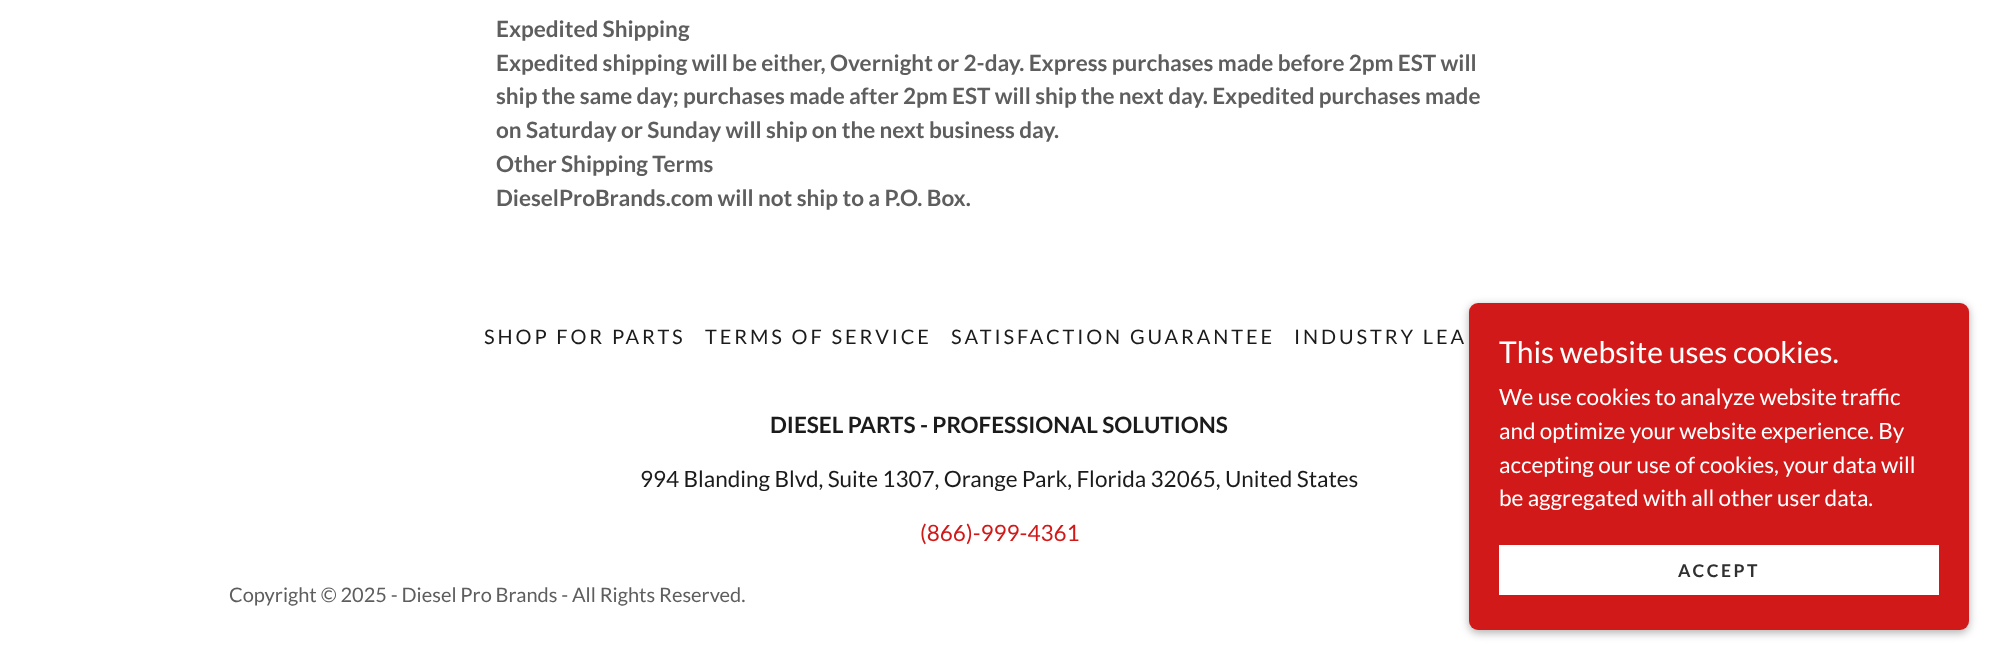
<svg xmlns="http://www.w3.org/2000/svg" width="1998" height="659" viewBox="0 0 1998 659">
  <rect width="100%" height="100%" fill="#fff"/>
  <rect x="1469" y="305" width="500" height="328" rx="9" fill="#0000004d" filter="blur(4px)"/>
  <rect x="1469" y="303" width="500" height="327" rx="9" fill="#d11919"/>
  <path d="M1499 545h440v50H1499z" fill="#fff"/>
  <g font-family="Lato" font-size="22.5" font-weight="bold" fill="#5e5e5e">
    <text x="496" y="37">Expedited Shipping</text>
    <text x="496" y="71">Expedited shipping will be either, Overnight or 2-day. Express purchases made before 2pm EST will</text>
    <text x="496" y="104">ship the same day; purchases made after 2pm EST will ship the next day. Expedited purchases made</text>
    <text x="496" y="138">on Saturday or Sunday will ship on the next business day.</text>
    <text x="496" y="172">Other Shipping Terms</text>
    <text x="496" y="206">DieselProBrands.com will not ship to a P.O. Box.</text>
  </g>
  <g font-family="Lato" font-size="20" letter-spacing="2.9" fill="#1b1b1b">
    <text x="484" y="344">SHOP FOR PARTS</text>
    <text x="705" y="344">TERMS OF SERVICE</text>
    <text x="951" y="344">SATISFACTION GUARANTEE</text>
    <text x="1294" y="344">INDUSTRY LEA</text>
  </g>
  <text x="770" y="433" font-family="Lato" font-size="22.5" font-weight="bold" fill="#1b1b1b">DIESEL PARTS - PROFESSIONAL SOLUTIONS</text>
  <text x="640" y="487" font-family="Lato" font-size="22.5" fill="#1b1b1b">994 Blanding Blvd, Suite 1307, Orange Park, Florida 32065, United States</text>
  <text x="920" y="541" font-family="Lato" font-size="22.5" fill="#d11919">(866)-999-4361</text>
  <text x="229" y="602" font-family="Lato" font-size="20" fill="#5e5e5e">Copyright © 2025 - Diesel Pro Brands - All Rights Reserved.</text>
  <text x="1499" y="363" font-family="Lato" font-size="30" fill="#fff">This website uses cookies.</text>
  <g font-family="Lato" font-size="22.5" fill="#fff">
    <text x="1499" y="405">We use cookies to analyze website traffic</text>
    <text x="1499" y="439">and optimize your website experience. By</text>
    <text x="1499" y="473">accepting our use of cookies, your data will</text>
    <text x="1499" y="506">be aggregated with all other user data.</text>
  </g>
  <text x="1678" y="577" font-family="Lato" font-size="17.5" font-weight="bold" letter-spacing="2.5" fill="#303030">ACCEPT</text>
</svg>
